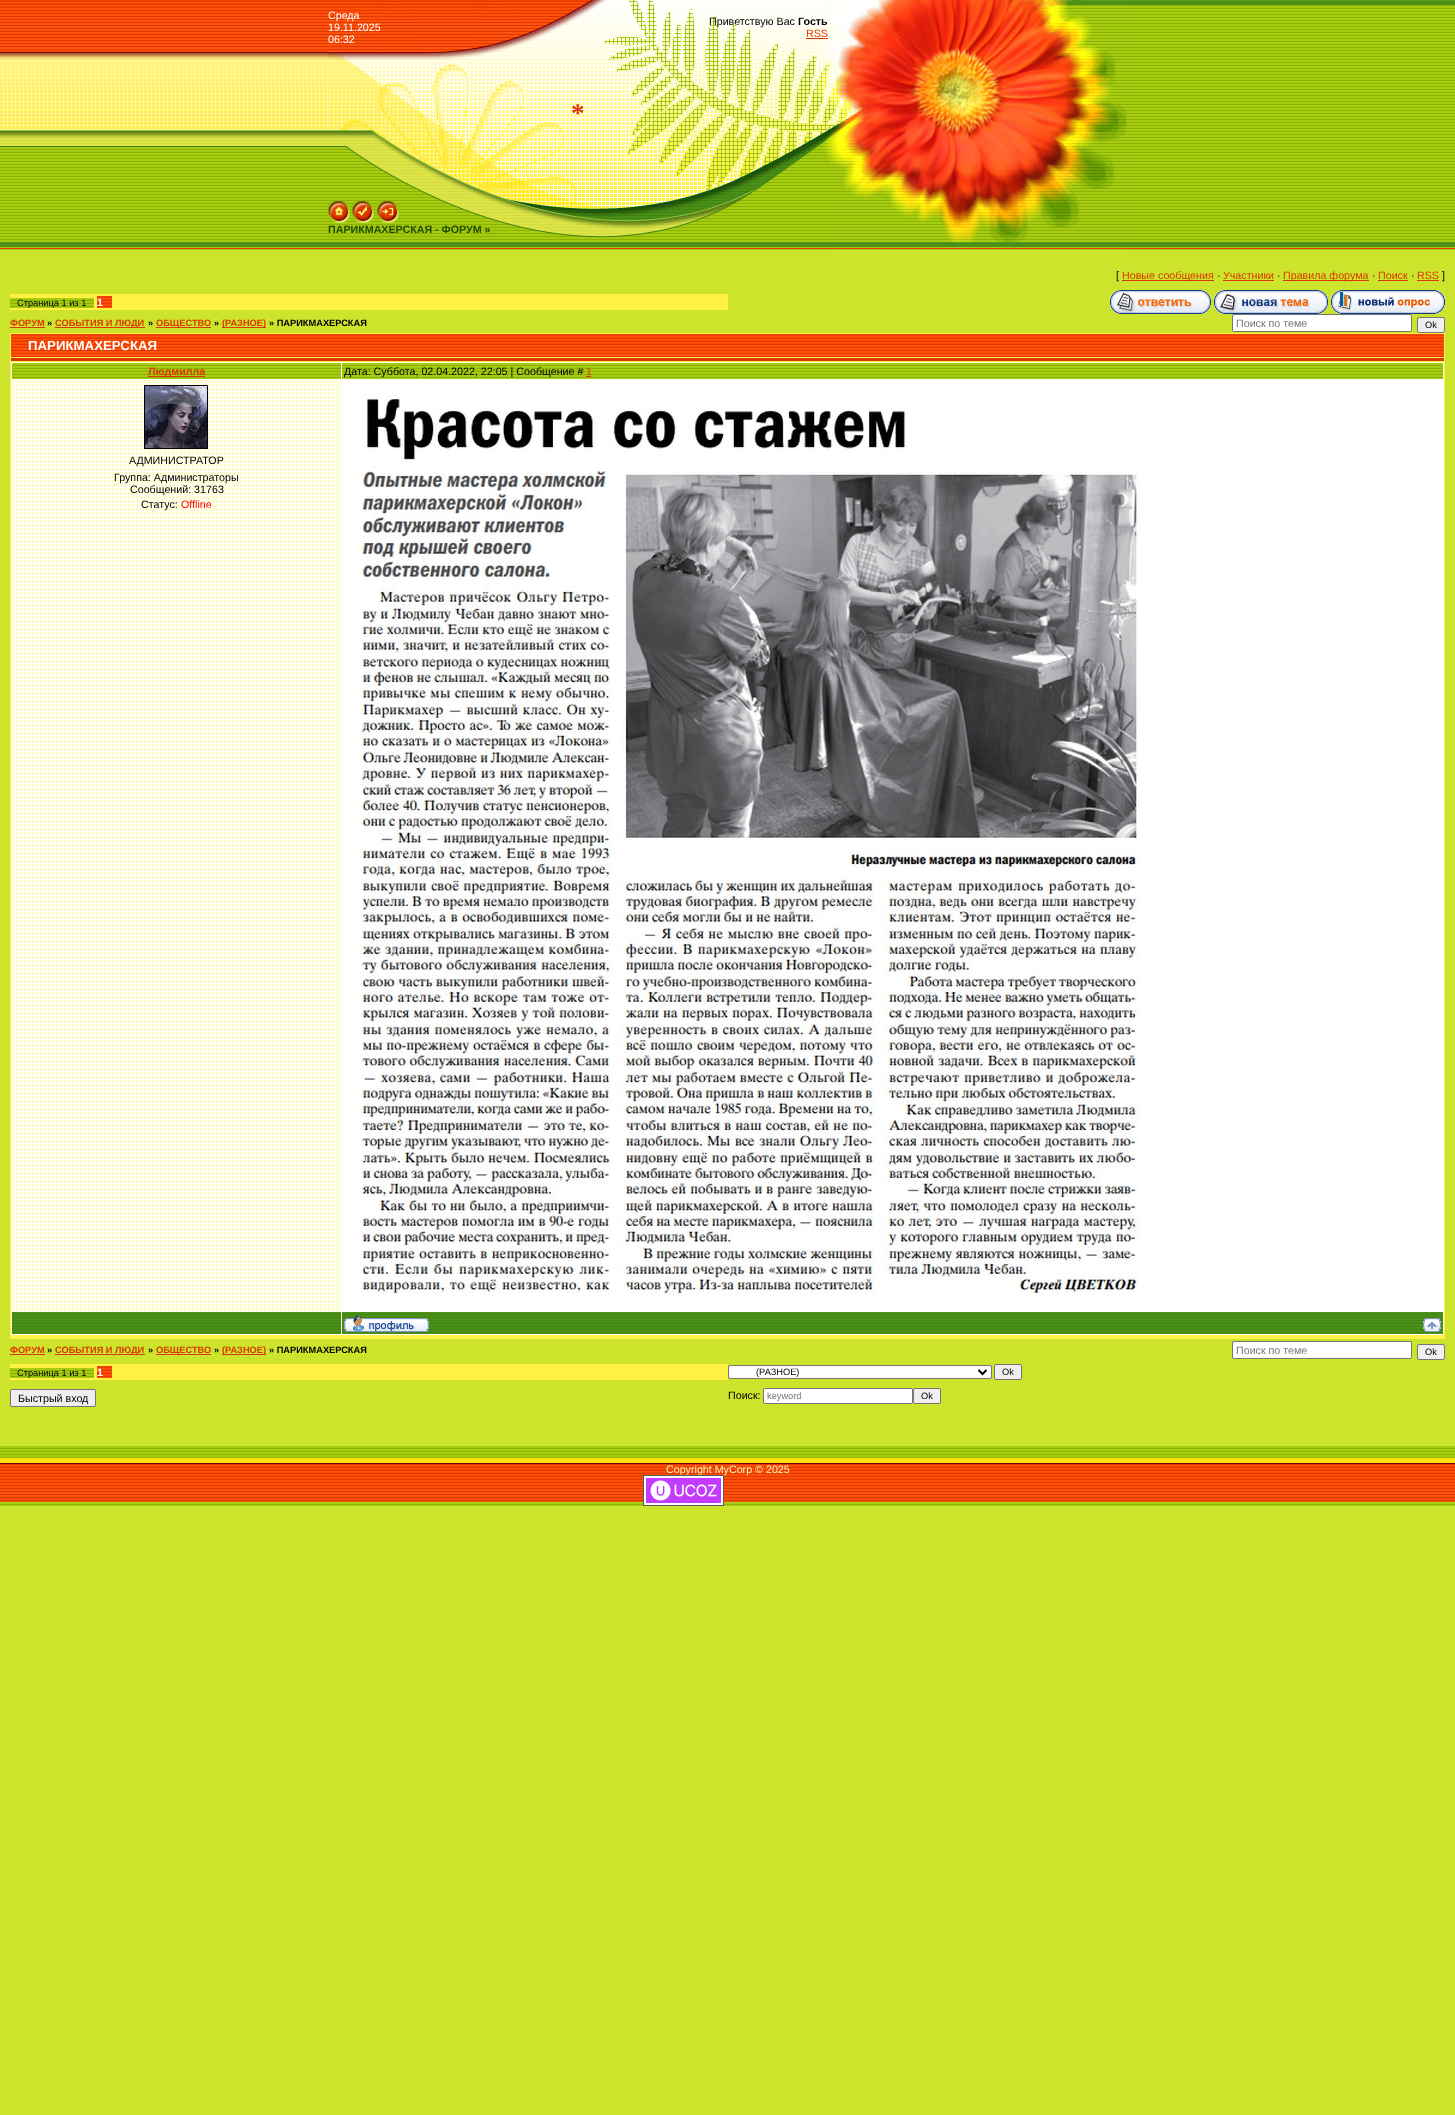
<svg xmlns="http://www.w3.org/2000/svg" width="1455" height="2115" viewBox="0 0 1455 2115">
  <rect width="100%" height="100%" fill="#cce42c"/>
  <image x="0" y="0" width="328" height="250" href="img/1.png"/>
  <image x="328" y="0" width="500" height="53" href="img/2.png"/>
  <path d="M806 38h22v1H806z" fill="#dc3700"/>
  <image x="828" y="0" width="300" height="250" href="img/3.png"/>
  <image x="1128" y="0" width="327" height="250" href="img/4.png"/>
  <image x="328" y="53" width="500" height="120" href="img/5.png"/>
  <image x="328" y="173" width="500" height="77" href="img/6.png"/>
  <image x="328" y="201" width="22" height="22" href="img/7.png"/>
  <image x="352" y="201" width="22" height="22" href="img/8.png"/>
  <image x="377" y="201" width="22" height="22" href="img/9.png"/>
  <path d="M1122 280h92v1H1122z" fill="#dc3700"/>
  <path d="M1223 280h51v1H1223z" fill="#dc3700"/>
  <path d="M1283 280h86v1H1283z" fill="#dc3700"/>
  <path d="M1378 280h30v1H1378z" fill="#dc3700"/>
  <path d="M1417 280h22v1H1417z" fill="#dc3700"/>
  <path d="M10 294h718v16H10z" fill="#fff243"/>
  <image x="10" y="298" width="84" height="10" href="img/10.png"/>
  <image x="97" y="296" width="15" height="12" href="img/11.png"/>
  <image x="1110" y="290" width="101" height="24" href="img/12.png"/>
  <image x="1214" y="290" width="114" height="24" href="img/13.png"/>
  <image x="1331" y="290" width="114" height="24" href="img/14.png"/>
  <path d="M10 327h35v1H10z" fill="#dc3700"/>
  <path d="M55 327h90v1H55z" fill="#dc3700"/>
  <path d="M156 327h55v1H156z" fill="#dc3700"/>
  <path d="M222 327h44v1H222z" fill="#dc3700"/>
  <rect x="1232.5" y="314.5" width="179" height="17" rx="1.5" fill="#fff" stroke="#767676"/>
  <rect x="1417.5" y="317.5" width="27" height="15" rx="1.5" fill="#efefef" stroke="#767676"/>
  <path d="M10 333h1435v1006H10z" fill="#fff243"/>
  <image x="11" y="334" width="1433" height="23" href="img/15.png"/>
  <path d="M11 358h1433v3H11z" fill="#dc3700"/>
  <path d="M11 362h1433v973H11z" fill="#fdfcf4"/>
  <path d="M11 1335h1433v3H11z" fill="#fff350"/>
  <image x="12" y="363" width="329" height="16" href="img/16.png"/>
  <path d="M148 376h57v1H148z" fill="#dc3700"/>
  <image x="342" y="363" width="1101" height="16" href="img/17.png"/>
  <path d="M586 376h5v1H586z" fill="#dc3700"/>
  <image x="12" y="380" width="329" height="931" href="img/18.png"/>
  <image x="144" y="385" width="64" height="64" href="img/19.png"/>
  <path d="M342 380h1101v931H342z" fill="#fff"/>
  <image x="355" y="393" width="784" height="904" href="img/20.png"/>
  <path d="M12 1312h329v22H12z" fill="#4b9019"/>
  <image x="12" y="1314" width="329" height="19" href="img/21.png"/>
  <path d="M342 1312h1101v22H342z" fill="#4b9019"/>
  <image x="342" y="1314" width="1101" height="19" href="img/22.png"/>
  <image x="344" y="1316" width="85" height="16" href="img/23.png"/>
  <image x="1423" y="1318" width="18" height="14" href="img/24.png"/>
  <path d="M10 1354h35v1H10z" fill="#dc3700"/>
  <path d="M55 1354h90v1H55z" fill="#dc3700"/>
  <path d="M156 1354h55v1H156z" fill="#dc3700"/>
  <path d="M222 1354h44v1H222z" fill="#dc3700"/>
  <rect x="1232.5" y="1341.5" width="179" height="17" rx="1.5" fill="#fff" stroke="#767676"/>
  <rect x="1417.5" y="1344.5" width="27" height="15" rx="1.5" fill="#efefef" stroke="#767676"/>
  <path d="M10 1364h718v16H10z" fill="#fff243"/>
  <image x="10" y="1368" width="84" height="10" href="img/10.png"/>
  <image x="97" y="1366" width="15" height="12" href="img/11.png"/>
  <rect x="728.5" y="1365.5" width="263" height="13" rx="1.5" fill="#fff" stroke="#767676"/>
  <path d="M978.5 1370L982.5 1374L986.5 1370" fill="none" stroke="#000" stroke-width="2"/>
  <rect x="994.5" y="1364.5" width="27" height="15" rx="1.5" fill="#efefef" stroke="#767676"/>
  <rect x="10.5" y="1389.5" width="85" height="17" rx="1.5" fill="#efefef" stroke="#767676"/>
  <rect x="763.5" y="1388.5" width="149" height="15" rx="1.5" fill="#fff" stroke="#767676"/>
  <rect x="913.5" y="1388.5" width="27" height="15" rx="1.5" fill="#efefef" stroke="#767676"/>
  <image x="0" y="1446" width="1455" height="60" href="img/25.png"/>
  <g font-family="Liberation Sans" font-size="10.7" fill="#fff">
    <text x="328" y="19">Среда</text>
    <text x="328" y="31">19.11.2025</text>
    <text x="328" y="43">06:32</text>
  </g>
  <text x="709" y="25" font-family="Liberation Sans" font-size="10.7" fill="#000">Приветствую Вас</text>
  <text x="798" y="25" font-family="Liberation Sans" font-size="10.7" font-weight="bold" fill="#000">Гость</text>
  <text x="806" y="37" font-family="Liberation Sans" font-size="10.7" fill="#dc3700">RSS</text>
  <text x="571" y="122" font-family="Liberation Serif" font-size="27" font-weight="bold" fill="#dc3700">*</text>
  <text x="328" y="233" font-family="Liberation Sans" font-size="10.7" font-weight="bold" fill="#1f4d00">ПАРИКМАХЕРСКАЯ - ФОРУМ »</text>
  <text x="1116" y="279" font-family="Liberation Sans" font-size="10.7" fill="#000">[</text>
  <text x="1122" y="279" font-family="Liberation Sans" font-size="10.7" fill="#dc3700">Новые сообщения</text>
  <text x="1217" y="279" font-family="Liberation Sans" font-size="10.7" fill="#000">·</text>
  <text x="1223" y="279" font-family="Liberation Sans" font-size="10.7" fill="#dc3700">Участники</text>
  <text x="1277" y="279" font-family="Liberation Sans" font-size="10.7" fill="#000">·</text>
  <text x="1283" y="279" font-family="Liberation Sans" font-size="10.7" fill="#dc3700">Правила форума</text>
  <text x="1372" y="279" font-family="Liberation Sans" font-size="10.7" fill="#000">·</text>
  <text x="1378" y="279" font-family="Liberation Sans" font-size="10.7" fill="#dc3700">Поиск</text>
  <text x="1411" y="279" font-family="Liberation Sans" font-size="10.7" fill="#000">·</text>
  <text x="1417" y="279" font-family="Liberation Sans" font-size="10.7" fill="#dc3700">RSS</text>
  <text x="1442" y="279" font-family="Liberation Sans" font-size="10.7" fill="#000">]</text>
  <text x="17" y="306" font-family="Liberation Sans" font-size="9.25" fill="#000">Страница 1 из 1</text>
  <text x="97" y="306" font-family="Liberation Sans" font-size="10.7" font-weight="bold" fill="#fff">1</text>
  <text x="10" y="326" font-family="Liberation Sans" font-size="9.25" font-weight="bold" fill="#dc3700">ФОРУМ</text>
  <text x="47" y="326" font-family="Liberation Sans" font-size="9.25" font-weight="bold" fill="#000">»</text>
  <text x="55" y="326" font-family="Liberation Sans" font-size="9.25" font-weight="bold" fill="#dc3700">СОБЫТИЯ И ЛЮДИ</text>
  <text x="148" y="326" font-family="Liberation Sans" font-size="9.25" font-weight="bold" fill="#000">»</text>
  <text x="156" y="326" font-family="Liberation Sans" font-size="9.25" font-weight="bold" fill="#dc3700">ОБЩЕСТВО</text>
  <text x="214" y="326" font-family="Liberation Sans" font-size="9.25" font-weight="bold" fill="#000">»</text>
  <text x="222" y="326" font-family="Liberation Sans" font-size="9.25" font-weight="bold" fill="#dc3700">(РАЗНОЕ)</text>
  <text x="269" y="326" font-family="Liberation Sans" font-size="9.25" font-weight="bold" fill="#000">» ПАРИКМАХЕРСКАЯ</text>
  <text x="1236" y="327" font-family="Liberation Sans" font-size="10.7" fill="#757575">Поиск по теме</text>
  <text x="1425" y="328" font-family="Liberation Sans" font-size="9.25" fill="#000">Ok</text>
  <text x="28" y="350" font-family="Liberation Sans" font-size="13.25" font-weight="bold" fill="#fff">ПАРИКМАХЕРСКАЯ</text>
  <text x="148" y="375" font-family="Liberation Sans" font-size="10.7" font-weight="bold" fill="#dc3700">Людмилла</text>
  <text x="344" y="375" font-family="Liberation Sans" font-size="10.7" fill="#000">Дата: Суббота, 02.04.2022, 22:05 | Сообщение #</text>
  <text x="586" y="375" font-family="Liberation Sans" font-size="10.7" fill="#dc3700">1</text>
  <g font-family="Liberation Sans" font-size="10.7" fill="#000">
    <text x="129" y="464">АДМИНИСТРАТОР</text>
    <text x="114" y="481">Группа: Администраторы</text>
    <text x="130" y="493">Сообщений: 31763</text>
    <text x="141" y="508">Статус:</text>
  </g>
  <text x="181" y="508" font-family="Liberation Sans" font-size="10.7" fill="#f00">Offline</text>
  <text x="10" y="1353" font-family="Liberation Sans" font-size="9.25" font-weight="bold" fill="#dc3700">ФОРУМ</text>
  <text x="47" y="1353" font-family="Liberation Sans" font-size="9.25" font-weight="bold" fill="#000">»</text>
  <text x="55" y="1353" font-family="Liberation Sans" font-size="9.25" font-weight="bold" fill="#dc3700">СОБЫТИЯ И ЛЮДИ</text>
  <text x="148" y="1353" font-family="Liberation Sans" font-size="9.25" font-weight="bold" fill="#000">»</text>
  <text x="156" y="1353" font-family="Liberation Sans" font-size="9.25" font-weight="bold" fill="#dc3700">ОБЩЕСТВО</text>
  <text x="214" y="1353" font-family="Liberation Sans" font-size="9.25" font-weight="bold" fill="#000">»</text>
  <text x="222" y="1353" font-family="Liberation Sans" font-size="9.25" font-weight="bold" fill="#dc3700">(РАЗНОЕ)</text>
  <text x="269" y="1353" font-family="Liberation Sans" font-size="9.25" font-weight="bold" fill="#000">» ПАРИКМАХЕРСКАЯ</text>
  <text x="1236" y="1354" font-family="Liberation Sans" font-size="10.7" fill="#757575">Поиск по теме</text>
  <g font-family="Liberation Sans" font-size="9.25" fill="#000">
    <text x="1425" y="1355">Ok</text>
    <text x="17" y="1376">Страница 1 из 1</text>
  </g>
  <text x="97" y="1376" font-family="Liberation Sans" font-size="10.7" font-weight="bold" fill="#fff">1</text>
  <g font-family="Liberation Sans" font-size="9.25" fill="#000">
    <text x="756" y="1375">(РАЗНОЕ)</text>
    <text x="1002" y="1375">Ok</text>
  </g>
  <g font-family="Liberation Sans" font-size="10.7" fill="#000">
    <text x="18" y="1402">Быстрый вход</text>
    <text x="728" y="1399">Поиск:</text>
  </g>
  <text x="767" y="1399" font-family="Liberation Sans" font-size="9.25" fill="#757575">keyword</text>
  <text x="921" y="1399" font-family="Liberation Sans" font-size="9.25" fill="#000">Ok</text>
  <text x="666" y="1473" font-family="Liberation Sans" font-size="10.7" fill="#f9f7ba">Copyright MyCorp © 2025</text>
  <image x="643" y="1475" width="81" height="31" href="img/26.png"/>
</svg>
